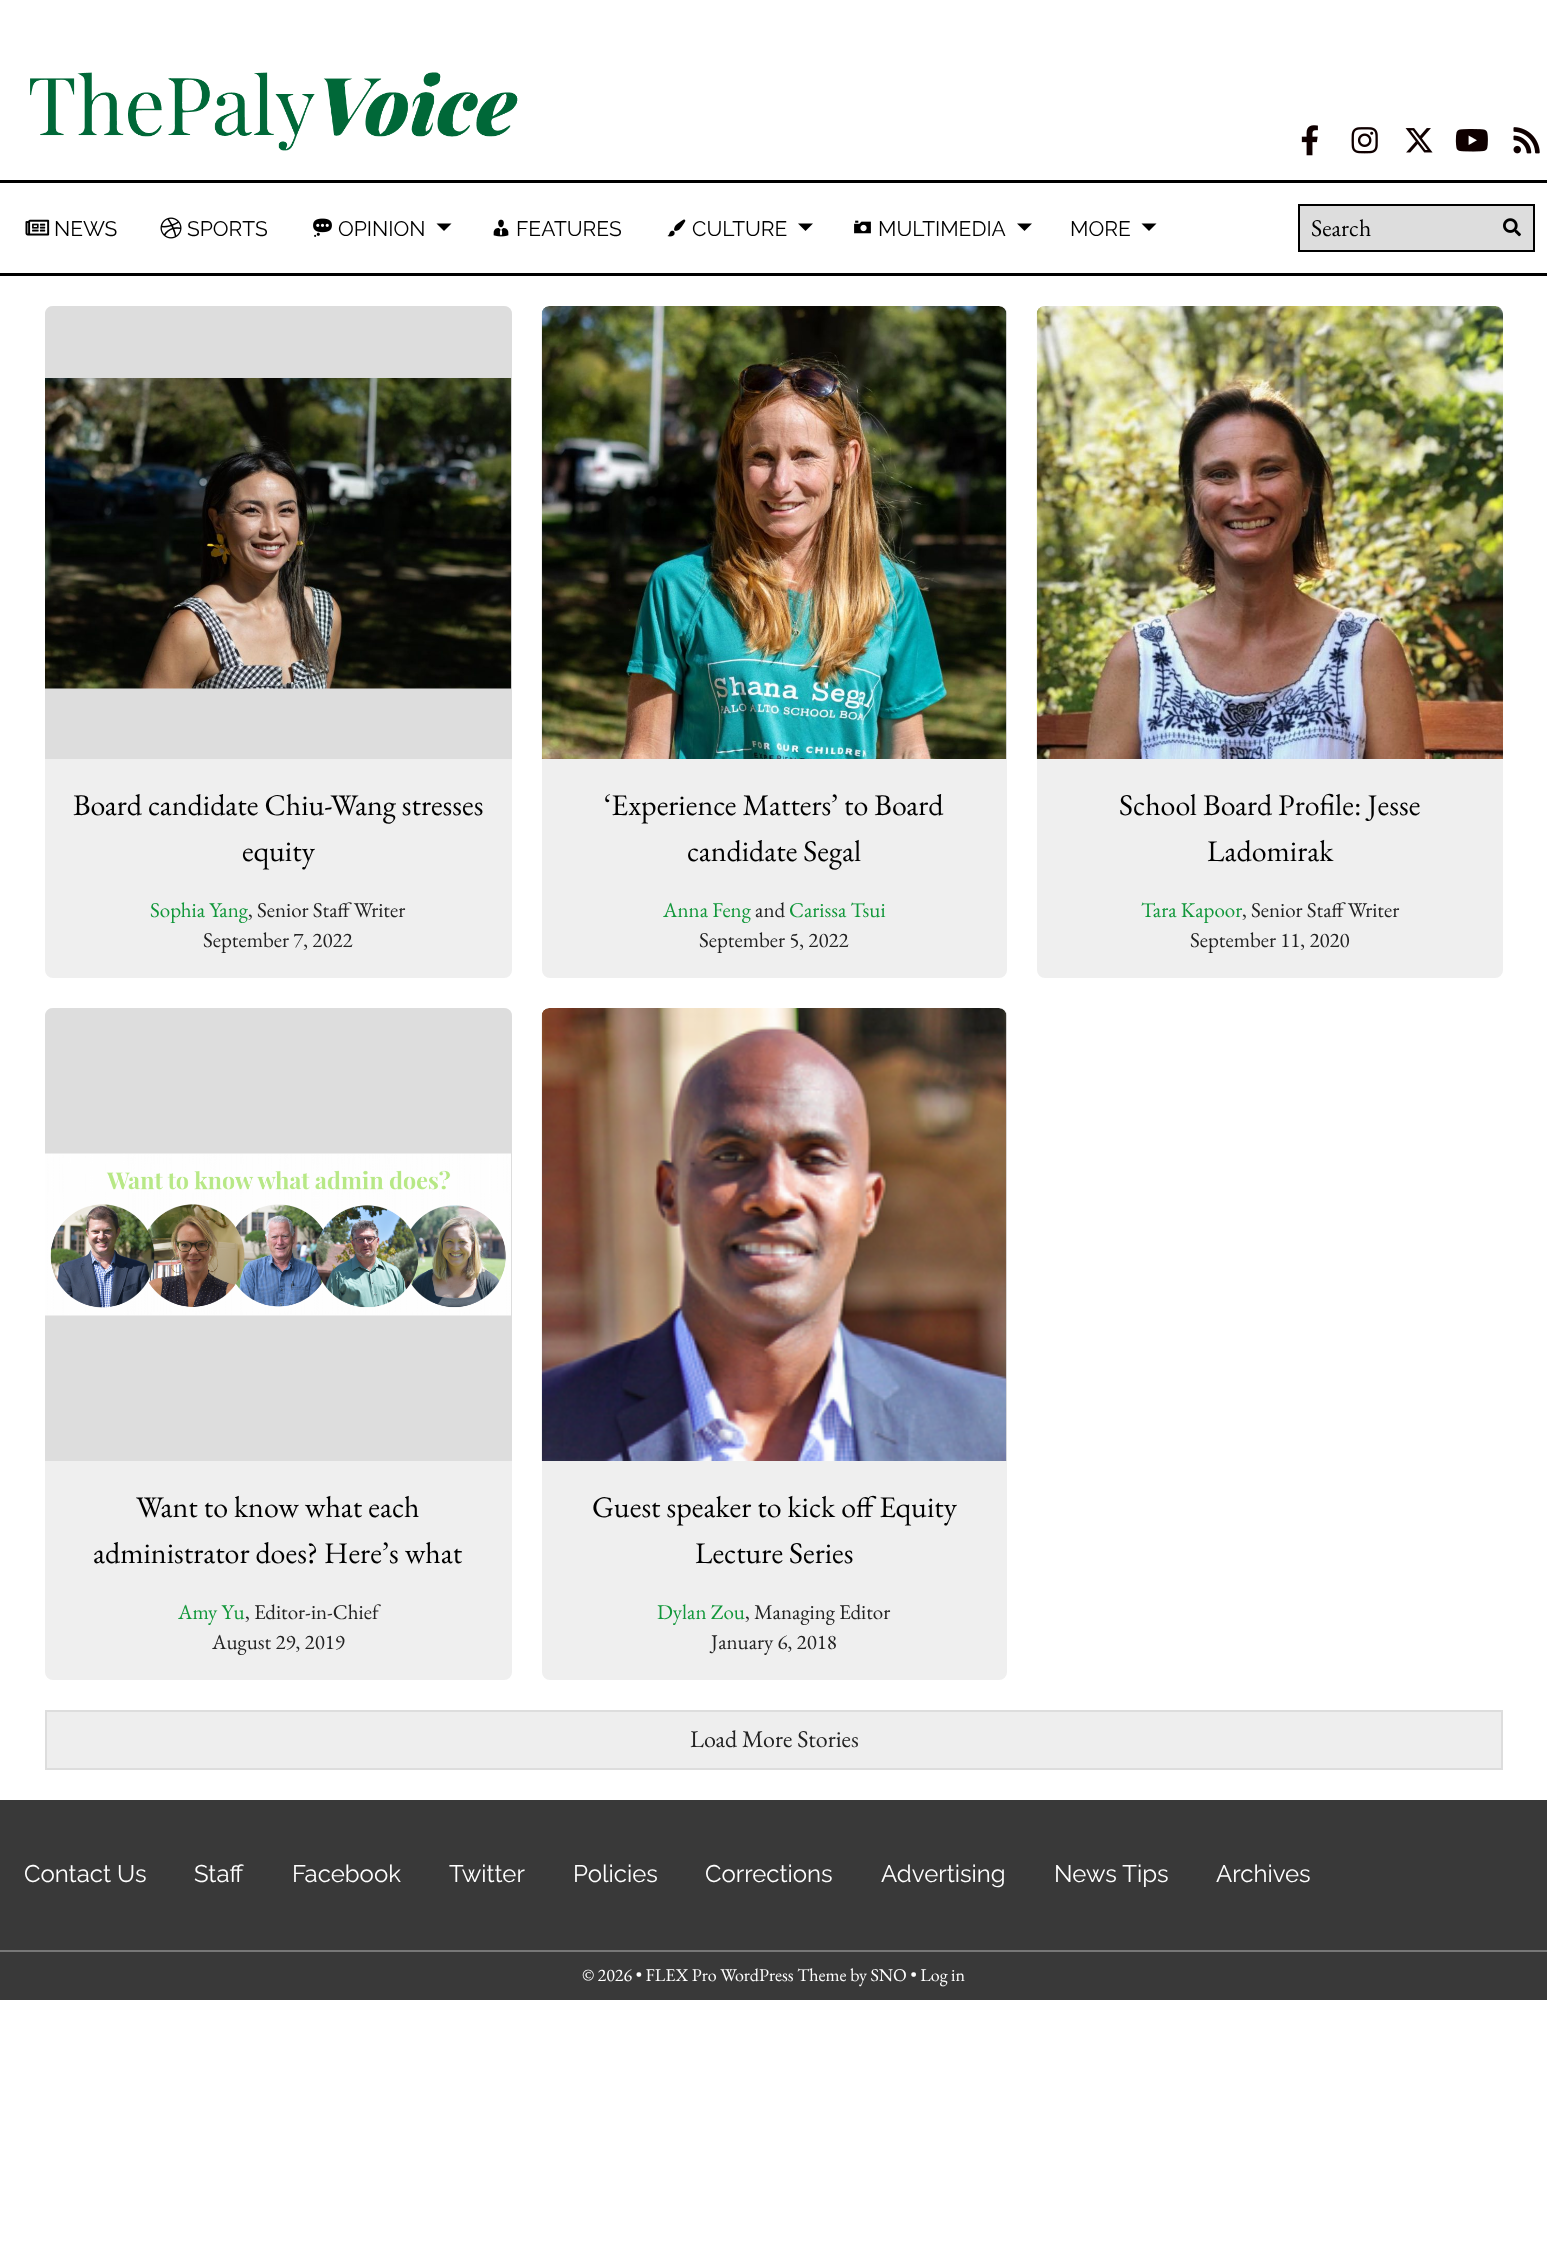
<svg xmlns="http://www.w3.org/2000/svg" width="1547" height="2253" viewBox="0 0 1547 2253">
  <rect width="100%" height="100%" fill="#fff"/>
  <path d="M0 180h1547v3H0z" fill="#000"/>
  <image x="30" y="72" width="488" height="79" href="img/1.png"/>
  <image x="1301" y="125" width="17" height="31" href="img/2.png"/>
  <image x="1351" y="127" width="27" height="27" href="img/3.png"/>
  <image x="1405" y="128" width="28" height="25" href="img/4.png"/>
  <image x="1455" y="129" width="33" height="23" href="img/5.png"/>
  <image x="1513" y="127" width="27" height="27" href="img/6.png"/>
  <path d="M0 273h1547v3H0z" fill="#000"/>
  <image x="25" y="219" width="25" height="17" href="img/7.png"/>
  <image x="160" y="217" width="22" height="22" href="img/8.png"/>
  <image x="313" y="218" width="19" height="19" href="img/9.png"/>
  <path d="M436.5 223.5H451.5L444 231Z" fill="#000"/>
  <image x="493" y="219" width="16" height="18" href="img/10.png"/>
  <image x="667" y="219" width="19" height="18" href="img/11.png"/>
  <path d="M798 223.5H813L805.5 231Z" fill="#000"/>
  <image x="854" y="220" width="17" height="14" href="img/12.png"/>
  <path d="M1017 223.5H1032L1024.5 231Z" fill="#000"/>
  <path d="M1141.5 223.5H1156.5L1149 231Z" fill="#000"/>
  <path d="M1299 205h235v46H1299z" fill="#ddd" stroke="#000" stroke-width="2"/>
  <image x="1503" y="218" width="18" height="19" href="img/13.png"/>
  <rect x="45" y="306" width="467" height="672" rx="8" fill="#efefef"/>
  <path d="M53 306H504C508.5 306 512 309.5 512 314V759H45V314C45 309.5 48.5 306 53 306Z" fill="#ddd"/>
  <image x="45" y="378" width="467" height="311" href="img/14.png"/>
  <rect x="542" y="306" width="465" height="672" rx="8" fill="#efefef"/>
  <path d="M550 306H999C1003.5 306 1007 309.5 1007 314V759H542V314C542 309.5 545.5 306 550 306Z" fill="#ddd"/>
  <image x="541" y="306" width="466" height="453" href="img/15.png"/>
  <rect x="1037" y="306" width="466" height="672" rx="8" fill="#efefef"/>
  <path d="M1045 306H1495C1499.5 306 1503 309.5 1503 314V759H1037V314C1037 309.5 1040.5 306 1045 306Z" fill="#ddd"/>
  <image x="1036" y="306" width="467" height="453" href="img/16.png"/>
  <rect x="45" y="1008" width="467" height="672" rx="8" fill="#efefef"/>
  <path d="M53 1008H504C508.5 1008 512 1011.5 512 1016V1461H45V1016C45 1011.5 48.5 1008 53 1008Z" fill="#ddd"/>
  <image x="45" y="1153" width="466" height="163" href="img/17.png"/>
  <rect x="542" y="1008" width="465" height="672" rx="8" fill="#efefef"/>
  <path d="M550 1008H999C1003.5 1008 1007 1011.5 1007 1016V1461H542V1016C542 1011.5 545.5 1008 550 1008Z" fill="#ddd"/>
  <image x="541" y="1008" width="466" height="453" href="img/18.png"/>
  <path d="M46 1711h1456v58H46z" fill="#eee" stroke="#ddd" stroke-width="2"/>
  <path d="M0 1800h1547v150H0z" fill="#393939"/>
  <path d="M0 1952h1547v48H0z" fill="#393939"/>
  <path d="M0 1950h1547v2H0z" fill="#777"/>
  <g font-family="Raleway" font-size="21" fill="#000">
    <text x="54" y="236">NEWS</text>
    <text x="187" y="236">SPORTS</text>
    <text x="338" y="236">OPINION</text>
    <text x="516" y="236">FEATURES</text>
    <text x="692" y="236">CULTURE</text>
    <text x="878" y="236">MULTIMEDIA</text>
    <text x="1070" y="236">MORE</text>
  </g>
  <text x="1311" y="236" font-family="EB Garamond" font-size="24" fill="#000">Search</text>
  <g font-family="EB Garamond" font-size="30" fill="#000">
    <text x="73" y="815">Board candidate Chiu-Wang stresses</text>
    <text x="242" y="861">equity</text>
  </g>
  <text x="150" y="917" font-family="EB Garamond" font-size="21" fill="#11973a">Sophia Yang</text>
  <g font-family="EB Garamond" font-size="21" fill="#222">
    <text x="248" y="917">, Senior Staff Writer</text>
    <text x="203" y="947">September 7, 2022</text>
  </g>
  <g font-family="EB Garamond" font-size="30" fill="#000">
    <text x="604" y="815">‘Experience Matters’ to Board</text>
    <text x="687" y="861">candidate Segal</text>
  </g>
  <text x="663" y="917" font-family="EB Garamond" font-size="21" fill="#11973a">Anna Feng</text>
  <text x="755" y="917" font-family="EB Garamond" font-size="21" fill="#222">and</text>
  <text x="789" y="917" font-family="EB Garamond" font-size="21" fill="#11973a">Carissa Tsui</text>
  <text x="699" y="947" font-family="EB Garamond" font-size="21" fill="#222">September 5, 2022</text>
  <g font-family="EB Garamond" font-size="30" fill="#000">
    <text x="1119" y="815">School Board Profile: Jesse</text>
    <text x="1207" y="861">Ladomirak</text>
  </g>
  <text x="1141" y="917" font-family="EB Garamond" font-size="21" fill="#11973a">Tara Kapoor</text>
  <g font-family="EB Garamond" font-size="21" fill="#222">
    <text x="1242" y="917">, Senior Staff Writer</text>
    <text x="1190" y="947">September 11, 2020</text>
  </g>
  <g font-family="EB Garamond" font-size="30" fill="#000">
    <text x="136" y="1517">Want to know what each</text>
    <text x="93" y="1563">administrator does? Here’s what</text>
  </g>
  <text x="178" y="1619" font-family="EB Garamond" font-size="21" fill="#11973a">Amy Yu</text>
  <g font-family="EB Garamond" font-size="21" fill="#222">
    <text x="245" y="1619">, Editor-in-Chief</text>
    <text x="212" y="1649">August 29, 2019</text>
  </g>
  <g font-family="EB Garamond" font-size="30" fill="#000">
    <text x="592" y="1517">Guest speaker to kick off Equity</text>
    <text x="695" y="1563">Lecture Series</text>
  </g>
  <text x="657" y="1619" font-family="EB Garamond" font-size="21" fill="#11973a">Dylan Zou</text>
  <g font-family="EB Garamond" font-size="21" fill="#222">
    <text x="745" y="1619">, Managing Editor</text>
    <text x="711" y="1649">January 6, 2018</text>
  </g>
  <text x="690" y="1747" font-family="EB Garamond" font-size="24" fill="#222">Load More Stories</text>
  <g font-family="Raleway" font-size="24" fill="#fff">
    <text x="24" y="1882">Contact Us</text>
    <text x="194" y="1882">Staff</text>
    <text x="292" y="1882">Facebook</text>
    <text x="449" y="1882">Twitter</text>
    <text x="573" y="1882">Policies</text>
    <text x="705" y="1882">Corrections</text>
    <text x="881" y="1882">Advertising</text>
    <text x="1054" y="1882">News Tips</text>
    <text x="1216" y="1882">Archives</text>
  </g>
  <text x="582" y="1981" font-family="EB Garamond" font-size="18" fill="#fff">© 2026 • FLEX Pro WordPress Theme by SNO • Log in</text>
</svg>
